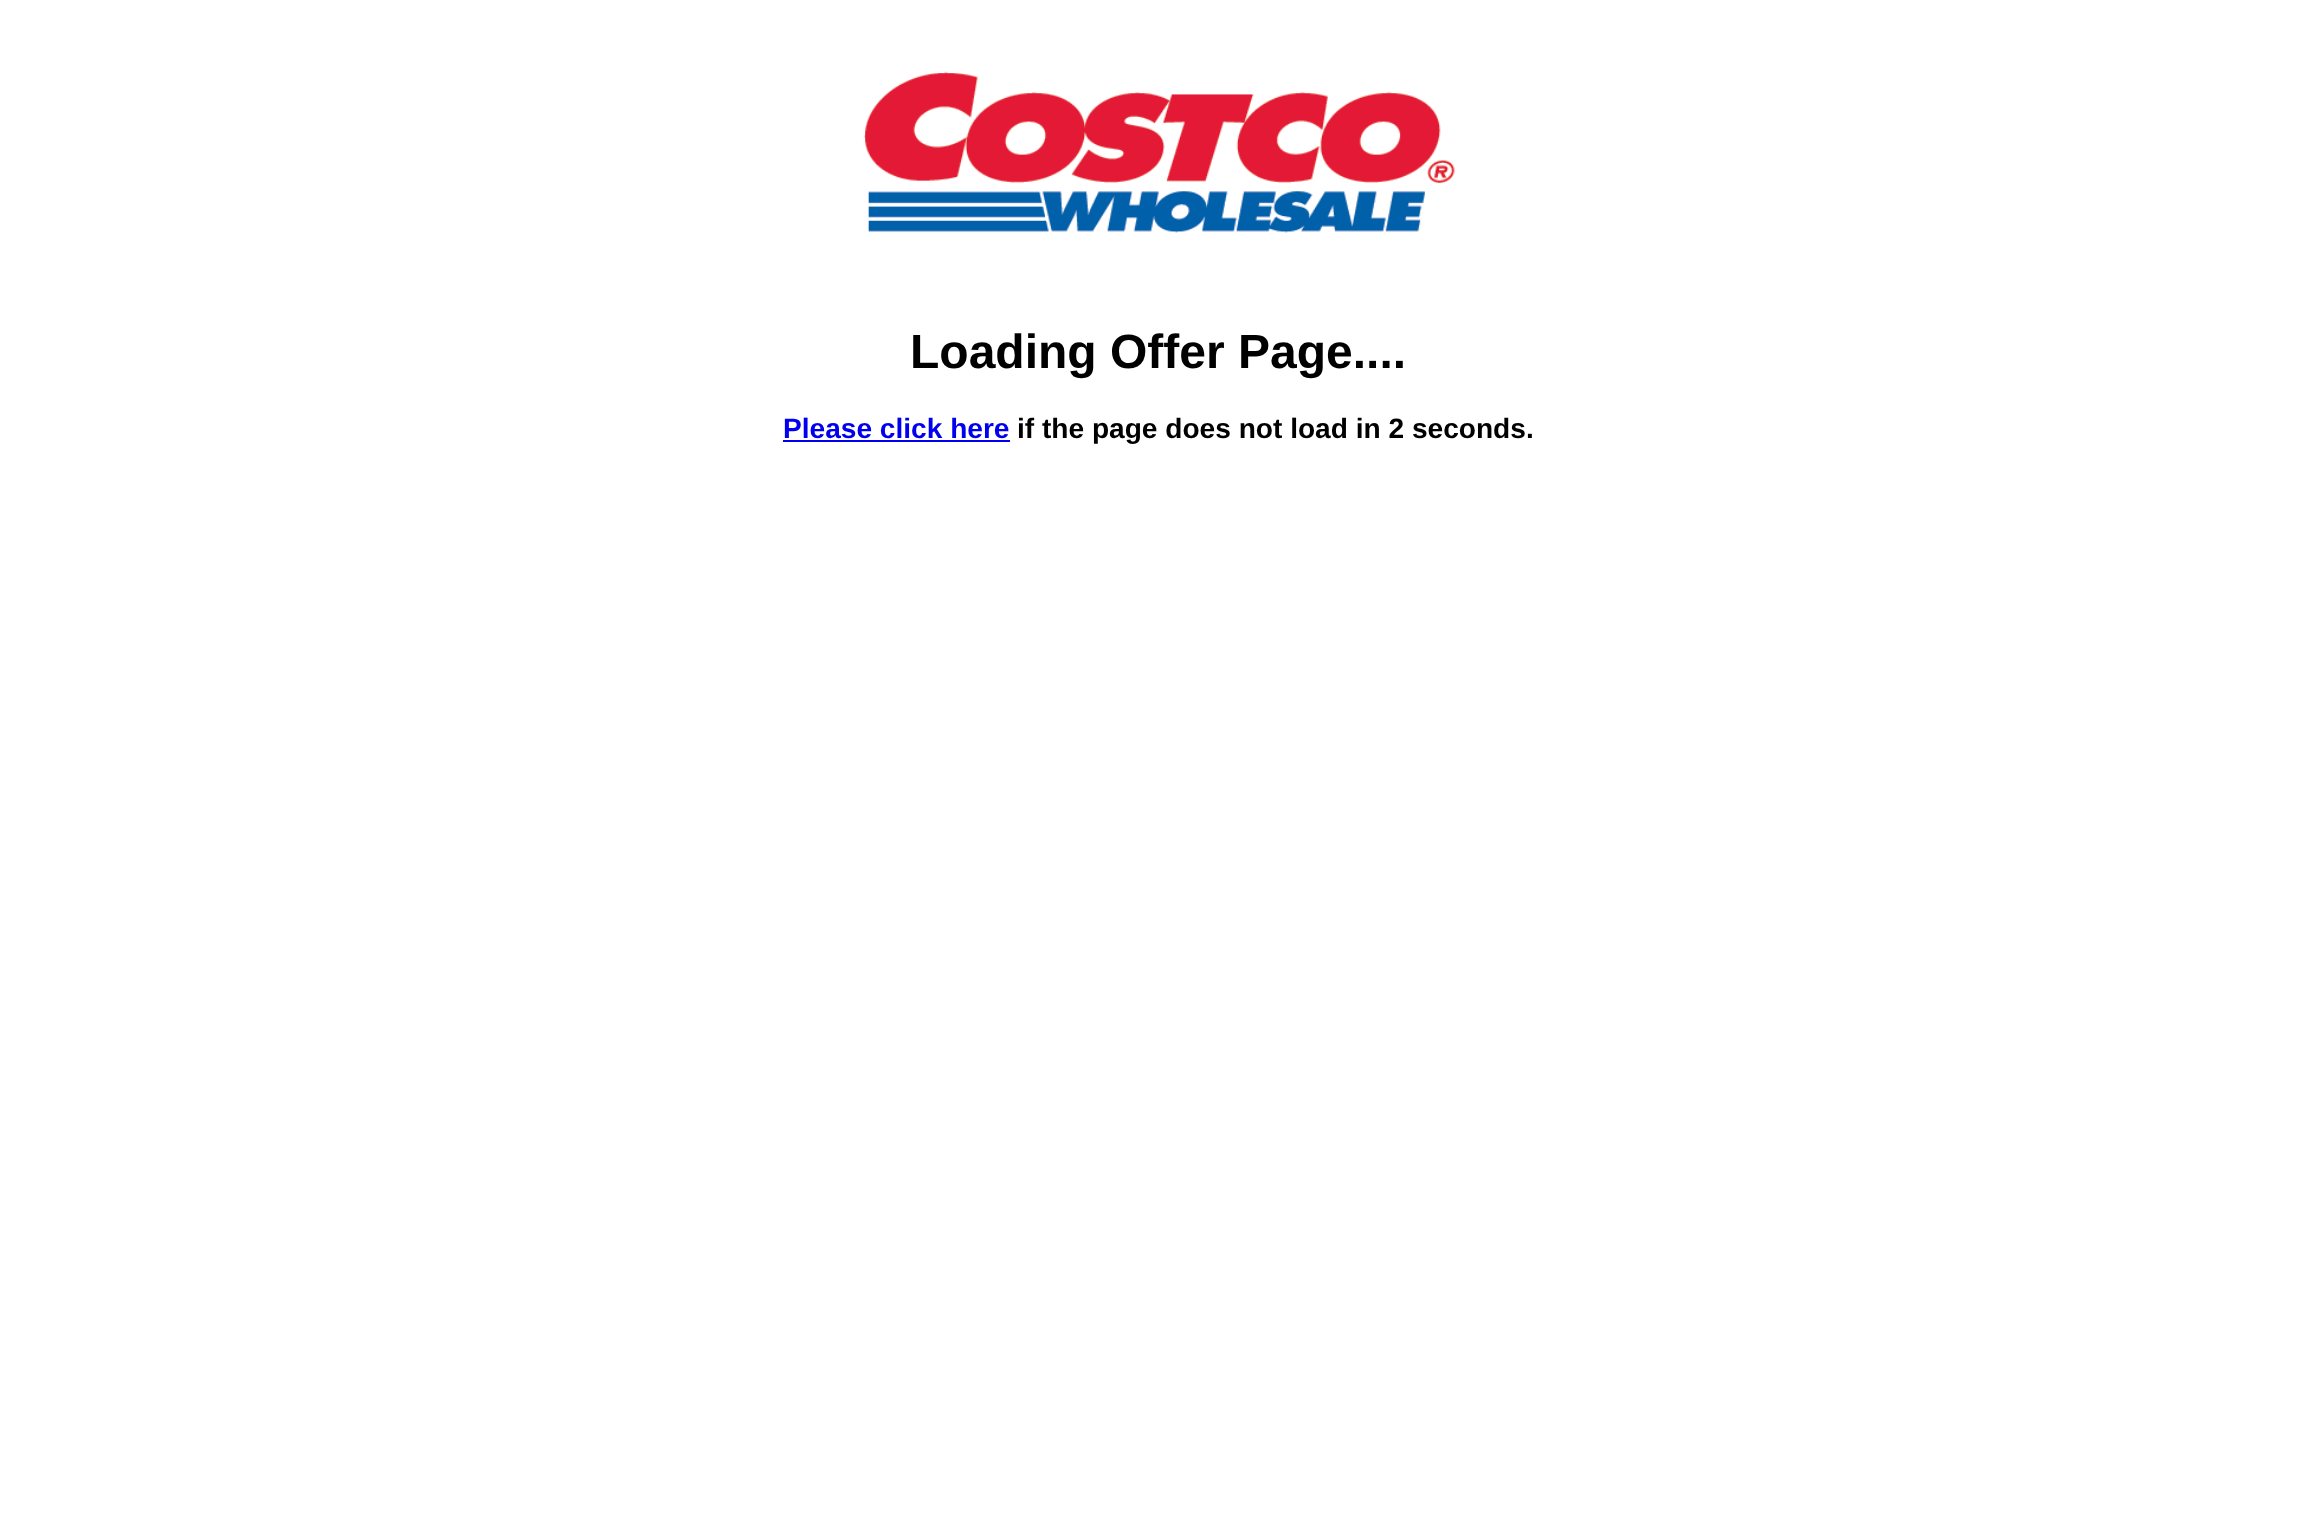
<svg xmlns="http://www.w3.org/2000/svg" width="2316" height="1516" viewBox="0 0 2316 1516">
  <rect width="100%" height="100%" fill="#fff"/>
  <image x="863" y="71" width="592" height="162" href="img/1.png"/>
  <path d="M783 440h227v2H783z" fill="#00e"/>
  <text x="910" y="368" font-family="Liberation Sans" font-size="48" font-weight="bold" fill="#000">Loading Offer Page....</text>
  <text x="783" y="438" font-family="Liberation Sans" font-size="28.1" font-weight="bold" fill="#00e">Please click here</text>
  <text x="1017" y="438" font-family="Liberation Sans" font-size="28.1" font-weight="bold" fill="#000">if the page does not load in 2 seconds.</text>
</svg>
